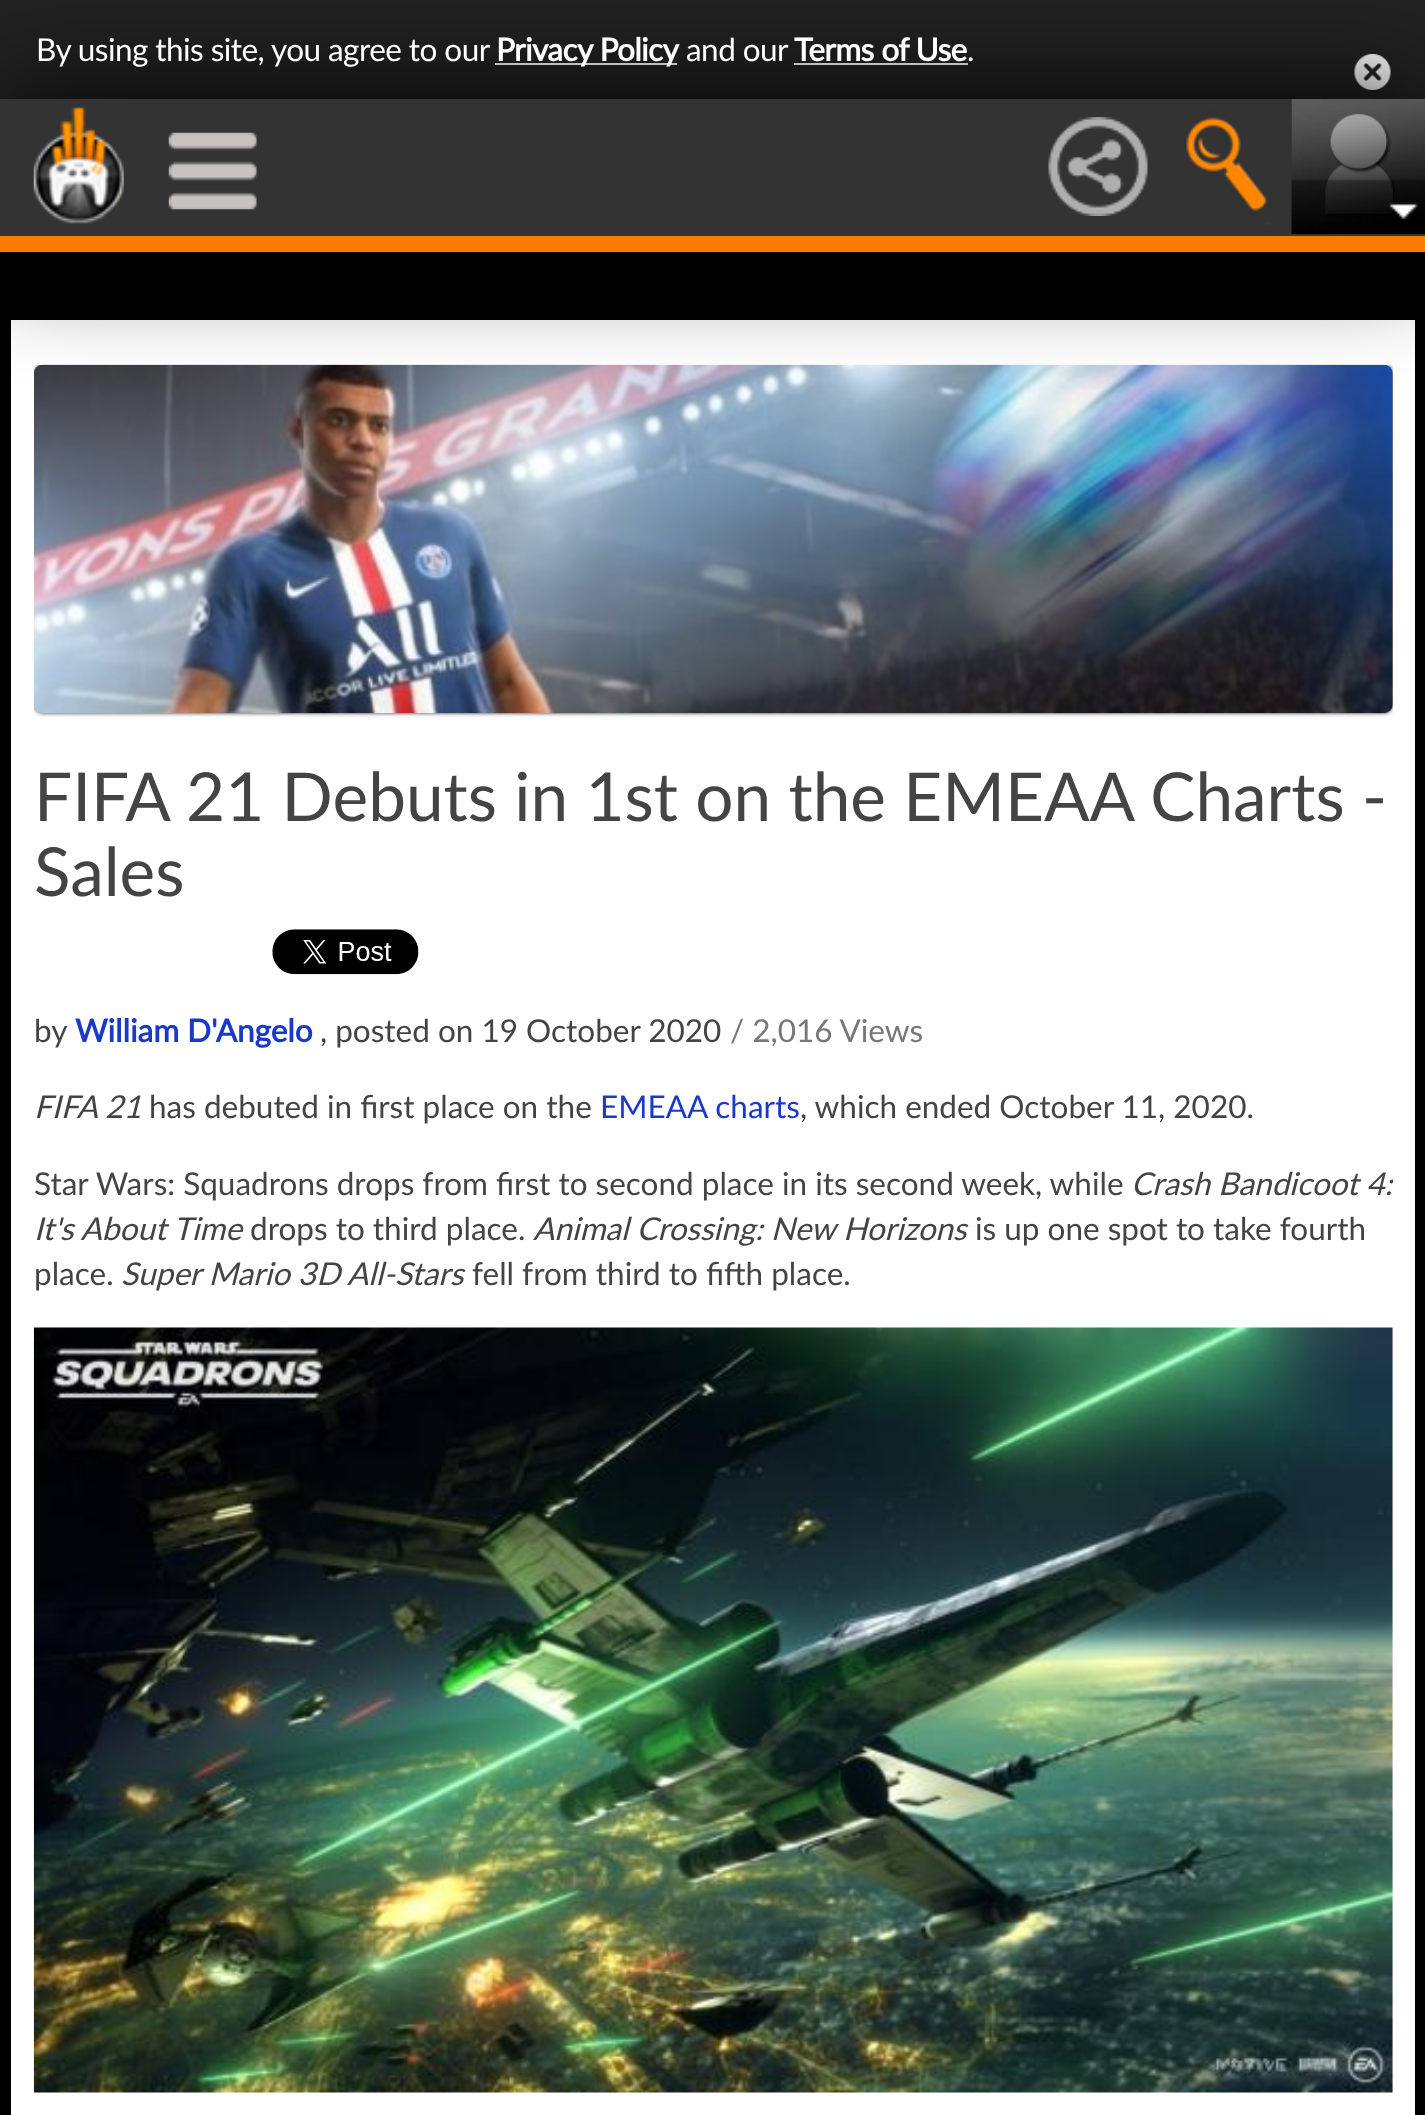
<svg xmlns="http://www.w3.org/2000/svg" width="1425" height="2115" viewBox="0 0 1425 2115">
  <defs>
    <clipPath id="clip1"><path d="M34 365h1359v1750H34z"/></clipPath>
    <clipPath id="clip2"><path d="M34 365h1359v1750H34z"/></clipPath>
  </defs>
  <rect width="100%" height="100%" fill="#000"/>
  <path d="M0 0h1425v99H0z" fill="#222"/>
  <path d="M495 63h182v2H495z" fill="#fff"/>
  <path d="M794 63h174v2H794z" fill="#fff"/>
  <image x="1354" y="54" width="37" height="36" href="img/7.png"/>
  <path d="M11 320h1404v1795H11z" fill="#fff"/>
  <g clip-path="url(#clip1)">
    <rect x="34" y="365" width="1359" height="348" rx="9" fill="#333" filter="blur(2px)"/>
  </g>
  <image x="34" y="364" width="1359" height="350" href="img/8.png"/>
  <path d="M0 101h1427v153H0z" fill="#000" filter="blur(56px)"/>
  <path d="M0 99h1425v137H0z" fill="#333"/>
  <image x="33" y="107" width="91" height="117" href="img/1.png"/>
  <image x="168" y="132" width="89" height="78" href="img/2.png"/>
  <image x="1048" y="117" width="100" height="99" href="img/3.png"/>
  <image x="1186" y="104" width="86" height="121" href="img/4.png"/>
  <image x="1291" y="99" width="134" height="135" href="img/5.png"/>
  <image x="1291" y="179" width="134" height="55" href="img/6.png"/>
  <path d="M0 236h1425v16H0z" fill="#f97b00"/>
  <image x="272" y="929" width="147" height="46" href="img/9.png"/>
  <image x="33" y="1327" width="1360" height="766" href="img/10.png"/>
  <text x="36" y="61" font-family="Lato" font-size="31.5" letter-spacing="-0.55" fill="#fff">By using this site, you agree to our</text>
  <text x="496" y="61" font-family="Lato" font-size="31.5" font-weight="bold" letter-spacing="-0.55" fill="#fff">Privacy Policy</text>
  <text x="686" y="61" font-family="Lato" font-size="31.5" letter-spacing="-0.55" fill="#fff">and our</text>
  <text x="794" y="61" font-family="Lato" font-size="31.5" font-weight="bold" letter-spacing="-0.55" fill="#fff">Terms of Use</text>
  <text x="967" y="61" font-family="Lato" font-size="31.5" letter-spacing="-0.55" fill="#fff">.</text>
  <g font-family="Lato" font-size="67.5" fill="#444">
    <text x="34" y="821">FIFA 21 Debuts in 1st on the EMEAA Charts -</text>
    <text x="34" y="896">Sales</text>
  </g>
  <text x="34" y="1042" font-family="Lato" font-size="31.5" fill="#444">by</text>
  <text x="75" y="1042" font-family="Lato" font-size="31.5" font-weight="bold" fill="#1b39c8">William D'Angelo</text>
  <text x="320" y="1042" font-family="Lato" font-size="31.5" fill="#444">, posted on 19 October 2020</text>
  <text x="730" y="1042" font-family="Lato" font-size="31.5" fill="#777">/ 2,016 Views</text>
  <text x="34" y="1118" font-family="Lato" font-size="31.5" font-style="italic" fill="#444">FIFA 21</text>
  <text x="149" y="1118" font-family="Lato" font-size="31.5" fill="#444">has debuted in first place on the</text>
  <text x="600" y="1118" font-family="Lato" font-size="31.5" fill="#1b39c8">EMEAA charts</text>
  <g font-family="Lato" font-size="31.5" fill="#444">
    <text x="800" y="1118">, which ended October 11, 2020.</text>
    <text x="34" y="1195">Star Wars: Squadrons drops from first to second place in its second week, while</text>
  </g>
  <g clip-path="url(#clip2)">
    <text x="1131" y="1195" font-family="Lato" font-size="31.5" font-style="italic" fill="#444">Crash Bandicoot 4:</text>
  </g>
  <text x="34" y="1240" font-family="Lato" font-size="31.5" font-style="italic" fill="#444">It's About Time</text>
  <text x="250" y="1240" font-family="Lato" font-size="31.5" fill="#444">drops to third place.</text>
  <text x="533" y="1240" font-family="Lato" font-size="31.5" font-style="italic" fill="#444">Animal Crossing: New Horizons</text>
  <g font-family="Lato" font-size="31.5" fill="#444">
    <text x="975" y="1240">is up one spot to take fourth</text>
    <text x="34" y="1285">place.</text>
  </g>
  <text x="121" y="1285" font-family="Lato" font-size="31.5" font-style="italic" fill="#444">Super Mario 3D All-Stars</text>
  <text x="472" y="1285" font-family="Lato" font-size="31.5" fill="#444">fell from third to fifth place.</text>
</svg>
